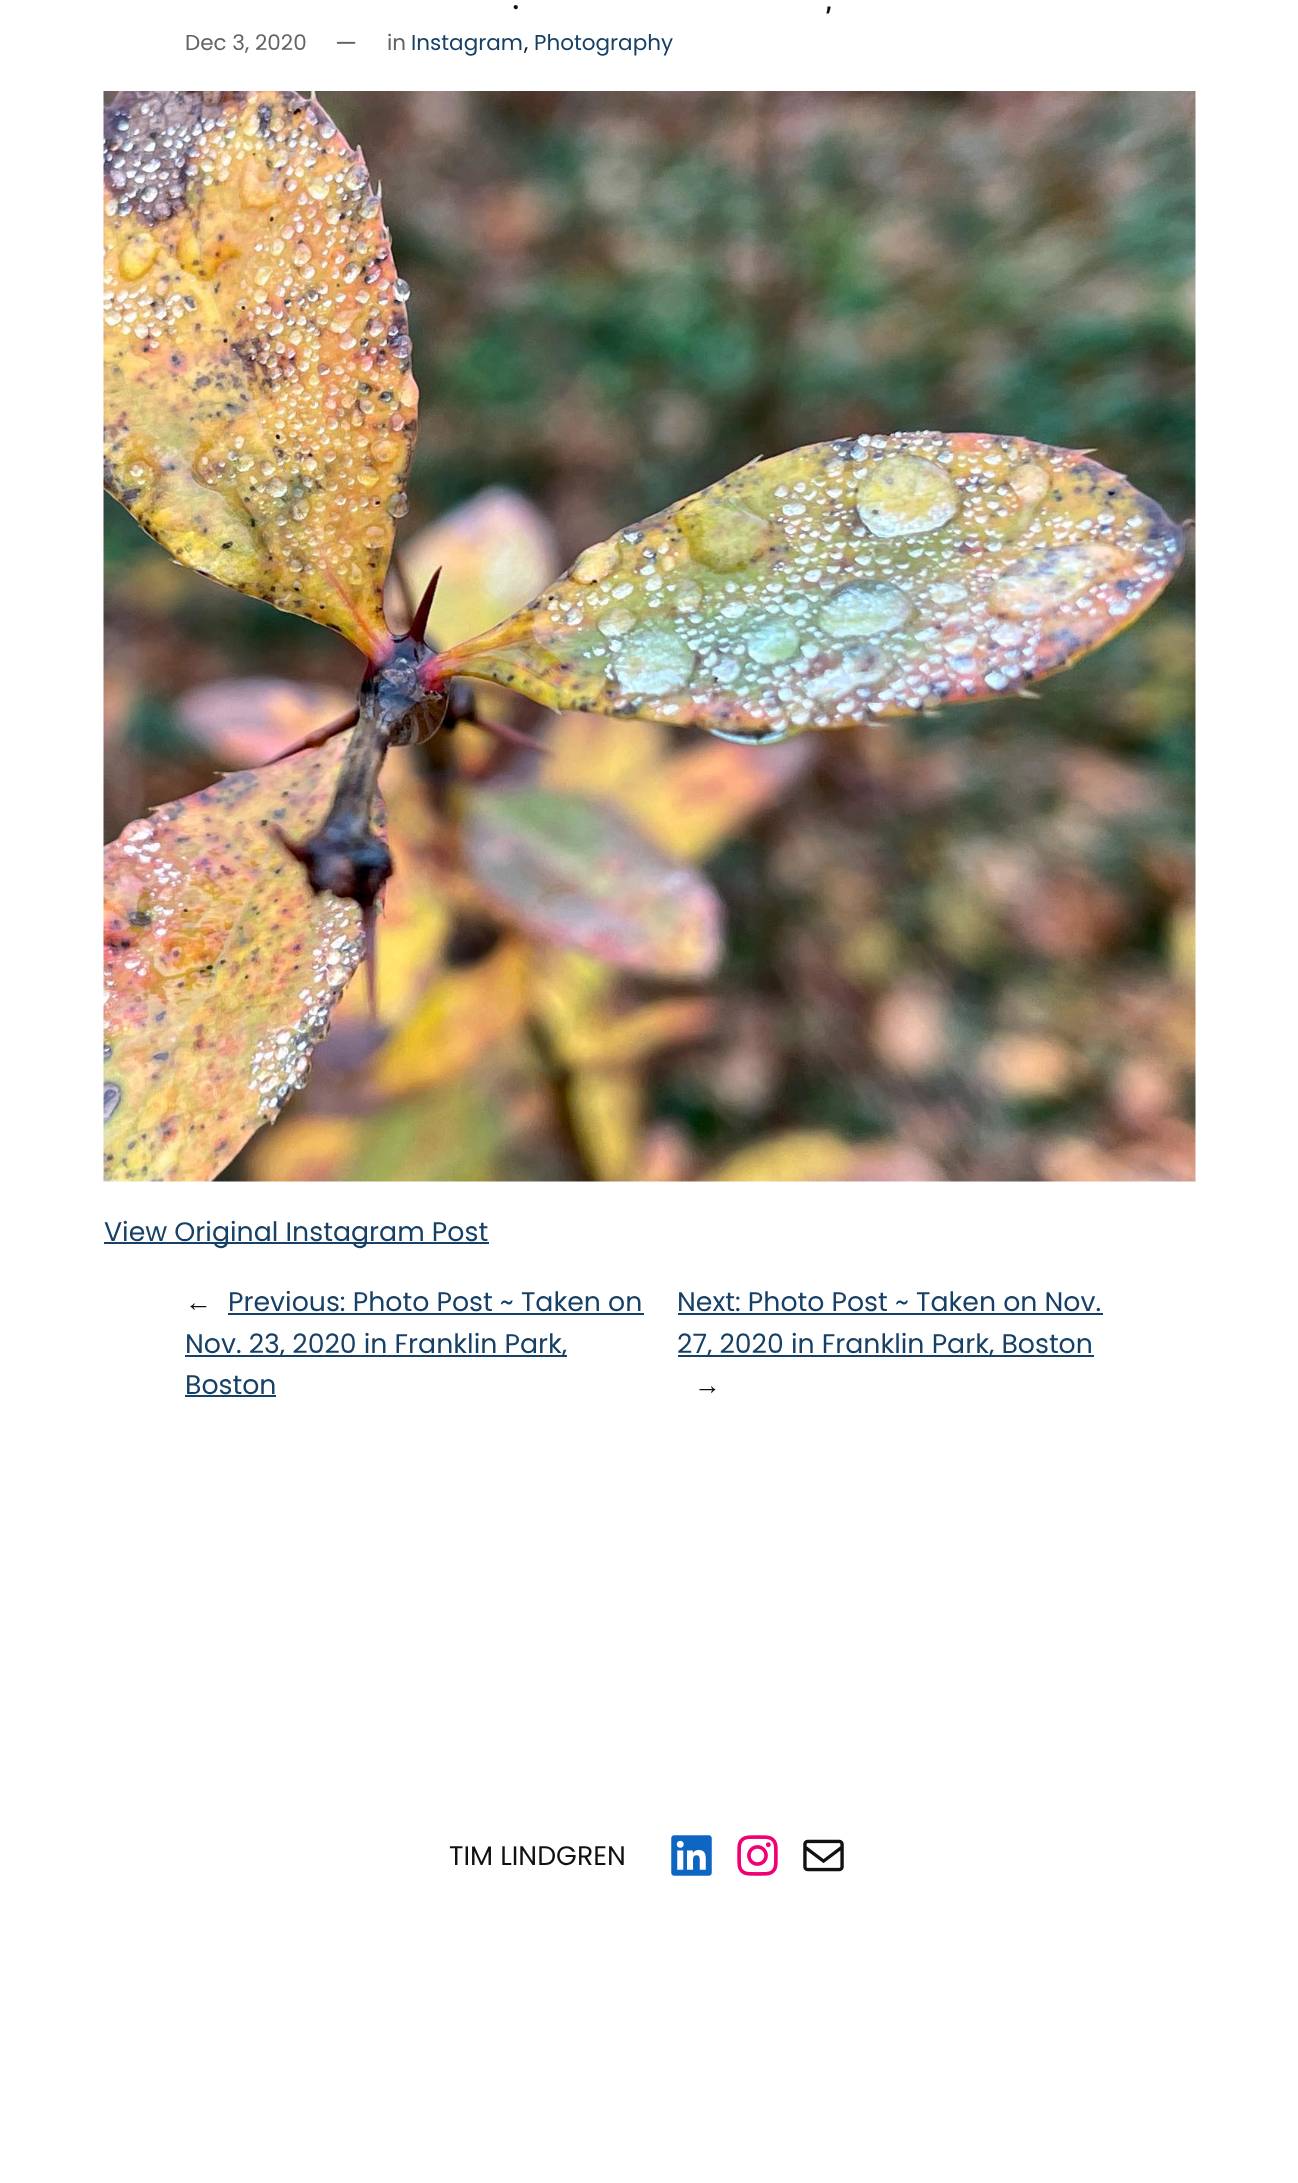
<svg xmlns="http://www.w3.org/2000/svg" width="1298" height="2183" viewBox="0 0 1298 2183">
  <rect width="100%" height="100%" fill="#fff"/>
  <image x="103" y="91" width="1093" height="1091" href="img/1.png"/>
  <path d="M104 1242h385v2H104z" fill="#174066"/>
  <path d="M228 1313h416v2H228z" fill="#174066"/>
  <path d="M185 1355h382v2H185z" fill="#174066"/>
  <path d="M185 1395h91v2H185z" fill="#174066"/>
  <path d="M678 1313h425v2H678z" fill="#174066"/>
  <path d="M678 1355h416v2H678z" fill="#174066"/>
  <image x="671" y="1835" width="41" height="41" href="img/2.png"/>
  <image x="737" y="1835" width="41" height="41" href="img/3.png"/>
  <image x="803" y="1839" width="41" height="33" href="img/4.png"/>
  <g font-family="Inter" font-size="25" font-weight="bold" fill="#111">
    <text x="512" y="9">.</text>
    <text x="825" y="9">,</text>
  </g>
  <text x="185" y="50" font-family="Poppins" font-size="21.5" fill="#636363">Dec 3, 2020</text>
  <text x="335" y="52" font-family="Poppins" font-size="25" fill="#636363">—</text>
  <text x="387" y="50" font-family="Poppins" font-size="21.5" fill="#636363">in</text>
  <text x="411" y="50" font-family="Poppins" font-size="21.5" fill="#174066">Instagram</text>
  <text x="524" y="50" font-family="Poppins" font-size="21.5" fill="#111">,</text>
  <text x="534" y="50" font-family="Poppins" font-size="21.5" fill="#174066">Photography</text>
  <text x="104" y="1241" font-family="Poppins" font-size="26.75" fill="#174066">View Original Instagram Post</text>
  <text x="185" y="1311" font-family="Liberation Sans" font-size="26.75" fill="#111">←</text>
  <g font-family="Poppins" font-size="26.75" fill="#174066">
    <text x="228" y="1311">Previous: Photo Post ~ Taken on</text>
    <text x="185" y="1353">Nov. 23, 2020 in Franklin Park,</text>
    <text x="185" y="1394">Boston</text>
    <text x="677" y="1311">Next: Photo Post ~ Taken on Nov.</text>
    <text x="677" y="1353">27, 2020 in Franklin Park, Boston</text>
  </g>
  <text x="694" y="1394" font-family="Liberation Sans" font-size="26.75" fill="#111">→</text>
  <text x="449" y="1865" font-family="Poppins" font-size="26.75" fill="#111">TIM LINDGREN</text>
</svg>
